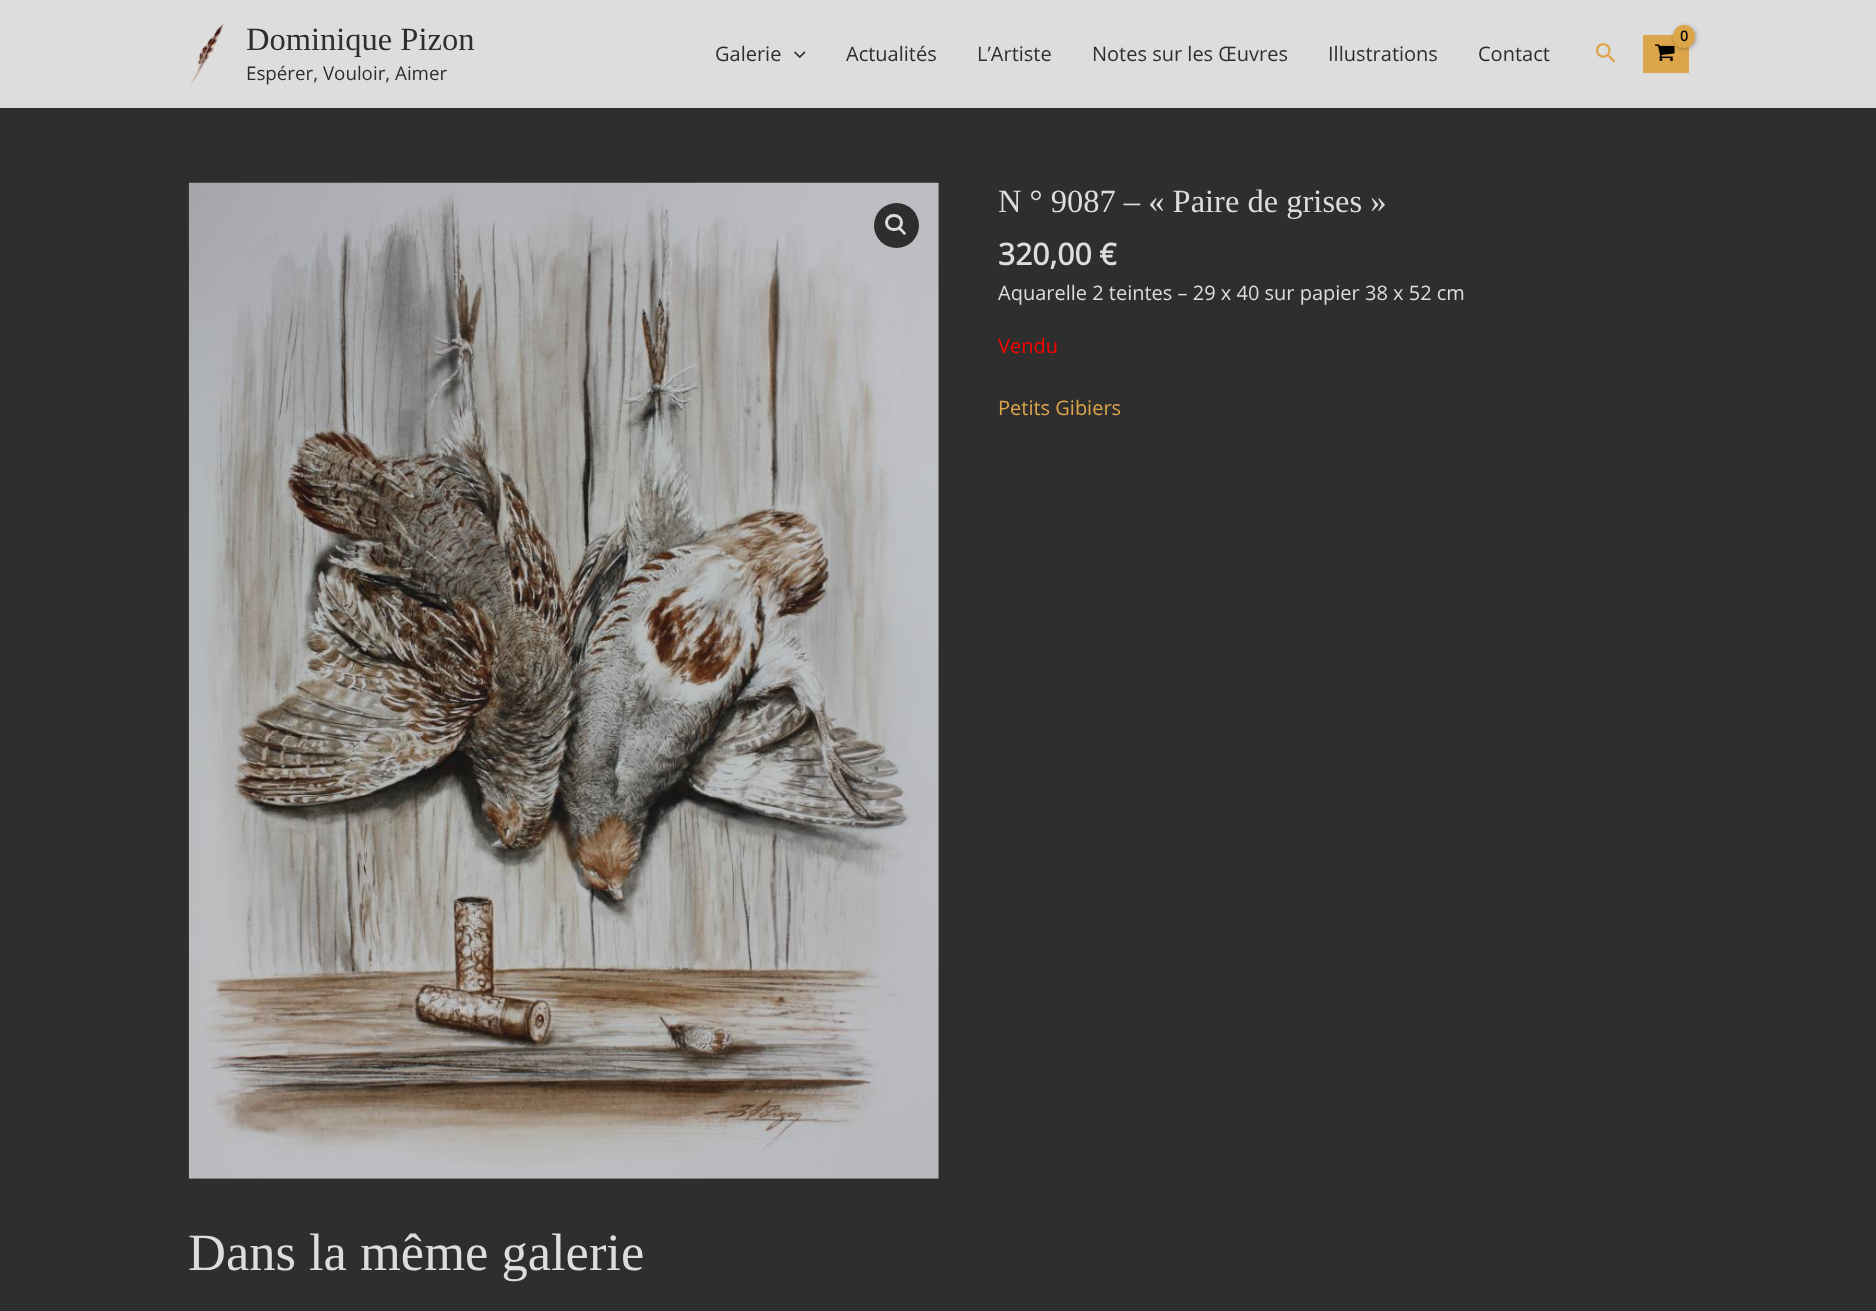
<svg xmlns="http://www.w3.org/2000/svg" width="1876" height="1311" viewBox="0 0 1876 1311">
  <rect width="100%" height="100%" fill="#2e2e2e"/>
  <path d="M0 0h1876v108H0z" fill="#ddd"/>
  <image x="190" y="22" width="35" height="62" href="img/1.png"/>
  <path d="M1643 35h46v38H1643z" fill="#dca54a"/>
  <image x="1654" y="44" width="21" height="17" href="img/2.png"/>
  <rect x="1674" y="26" width="22" height="23" rx="11" fill="#0000004d" filter="blur(2px)"/>
  <rect x="1673" y="25" width="22" height="23" rx="11" fill="#dca54a"/>
  <image x="794" y="51" width="12" height="8" href="img/3.png"/>
  <image x="1596" y="43" width="19" height="20" href="img/4.png"/>
  <image x="188" y="182" width="751" height="997" href="img/5.png"/>
  <circle cx="896.5" cy="225.5" r="22.5" fill="#2e2e2e"/>
  <rect x="886.5" y="215.5" width="15" height="14" rx="7" fill="none" stroke="#ddd" stroke-width="3"/>
  <path d="M898.5 227.5C900 226 902 229 903 230C903.5 230.5 907 233 905.5 234.5C904 236 902 232.5 901 231.5C900 231 897 228.5 898.5 227.5Z" fill="#ddd"/>
  <text x="246" y="50" font-family="Liberation Serif" font-size="32.5" fill="#2e2e2e">Dominique Pizon</text>
  <text x="246" y="80" font-family="Open Sans" font-size="18.75" fill="#2e2e2e">Espérer, Vouloir, Aimer</text>
  <text x="1680" y="41" font-family="Open Sans" font-size="14" font-weight="bold" letter-spacing="-1" fill="#000">0</text>
  <g font-family="Open Sans" font-size="20" fill="#2e2e2e">
    <text x="715" y="61">Galerie</text>
    <text x="846" y="61">Actualités</text>
    <text x="977" y="61">L’Artiste</text>
    <text x="1092" y="61">Notes sur les Œuvres</text>
    <text x="1328" y="61">Illustrations</text>
    <text x="1478" y="61">Contact</text>
  </g>
  <text x="998" y="212" font-family="Liberation Serif" font-size="32.5" fill="#ddd">N ° 9087 – « Paire de grises »</text>
  <text x="998" y="265" font-family="Open Sans" font-size="30" font-weight="bold" fill="#ddd">320,00 €</text>
  <text x="998" y="300" font-family="Open Sans" font-size="20" fill="#ddd">Aquarelle 2 teintes – 29 x 40 sur papier 38 x 52 cm</text>
  <text x="998" y="353" font-family="Open Sans" font-size="20" fill="#f00">Vendu</text>
  <text x="998" y="415" font-family="Open Sans" font-size="20" fill="#dca54a">Petits Gibiers</text>
  <text x="188" y="1270" font-family="Liberation Serif" font-size="52.5" fill="#ddd">Dans la même galerie</text>
</svg>
